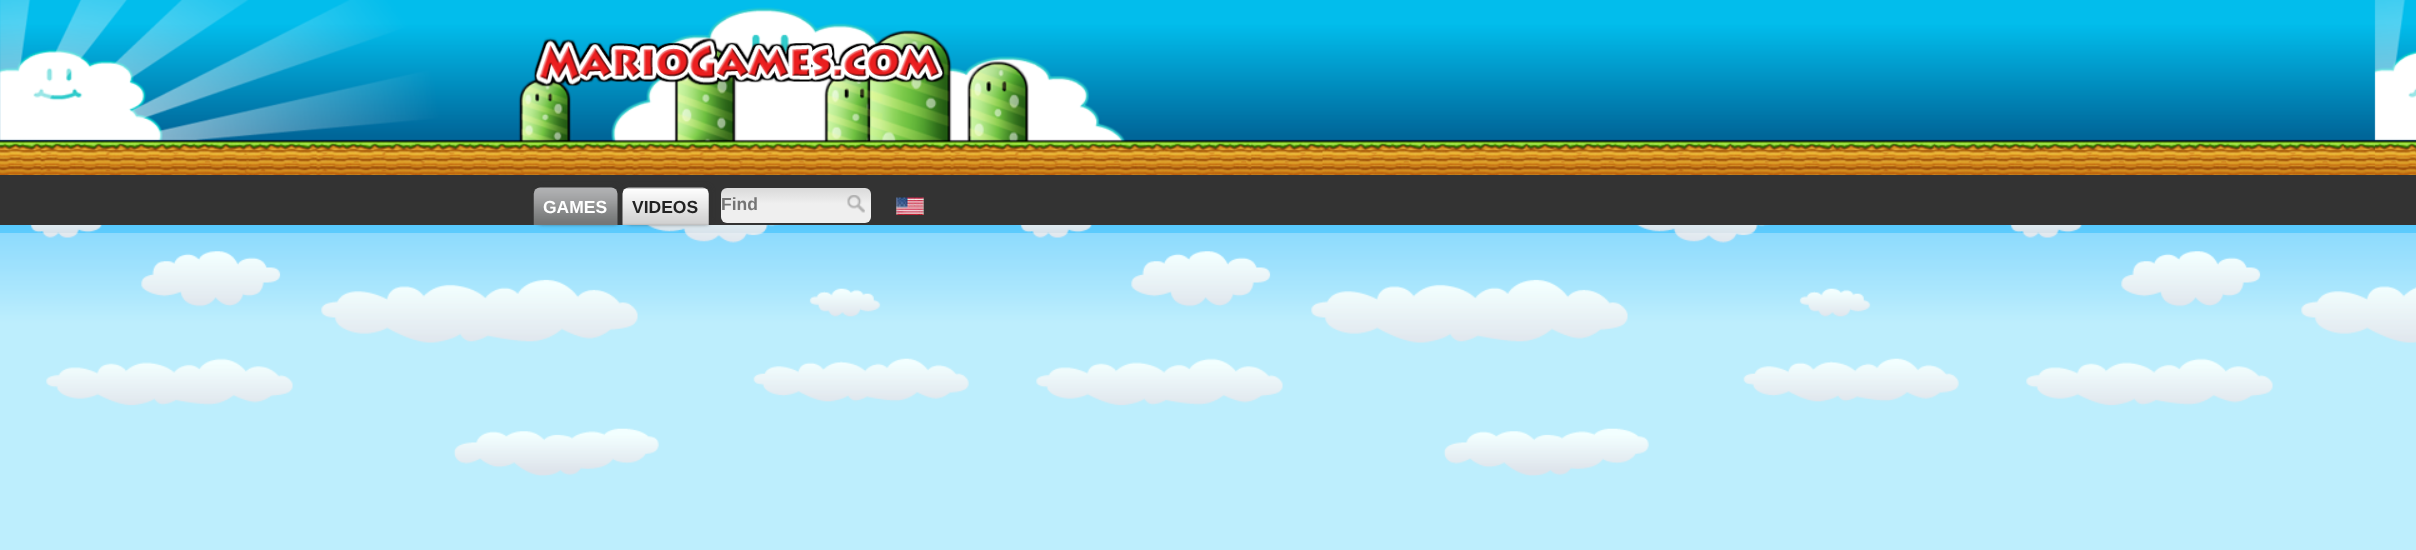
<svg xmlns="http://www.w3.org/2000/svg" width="2416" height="550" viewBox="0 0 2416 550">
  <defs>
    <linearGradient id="g1" gradientUnits="userSpaceOnUse" x1="796" y1="188" x2="796" y2="223"><stop offset="0.08" stop-color="#ddd"/><stop offset="0.45" stop-color="#efefef"/></linearGradient>
  </defs>
  <rect width="100%" height="100%" fill="#a1e7fc"/>
  <image x="0" y="225" width="2416" height="251" href="img/1.png"/>
  <path d="M0 175h2416v50H0z" fill="#333"/>
  <image x="0" y="0" width="2416" height="175" href="img/2.png"/>
  <image x="533" y="37" width="412" height="50" href="img/3.png"/>
  <rect x="536" y="186" width="84" height="38" rx="6" fill="#323232bf" filter="blur(2px)"/>
  <image x="533" y="187" width="85" height="38" href="img/4.png"/>
  <rect x="625" y="186" width="86" height="38" rx="6" fill="#323232bf" filter="blur(2px)"/>
  <image x="622" y="187" width="87" height="38" href="img/5.png"/>
  <rect x="721" y="188" width="150" height="35" rx="6" fill="url(#g1)"/>
  <image x="847" y="195" width="18" height="18" href="img/6.png"/>
  <image x="896" y="197" width="28" height="18" href="img/7.png"/>
  <path d="M0 233h2416v317H0z" fill="#ffffff4d"/>
  <text x="543" y="213" font-family="Liberation Sans" font-size="17.5" font-weight="bold" fill="#fff">GAMES</text>
  <text x="632" y="213" font-family="Liberation Sans" font-size="17.5" font-weight="bold" fill="#222">VIDEOS</text>
  <text x="721" y="210" font-family="Liberation Sans" font-size="17.5" font-weight="bold" fill="#757575">Find</text>
</svg>
